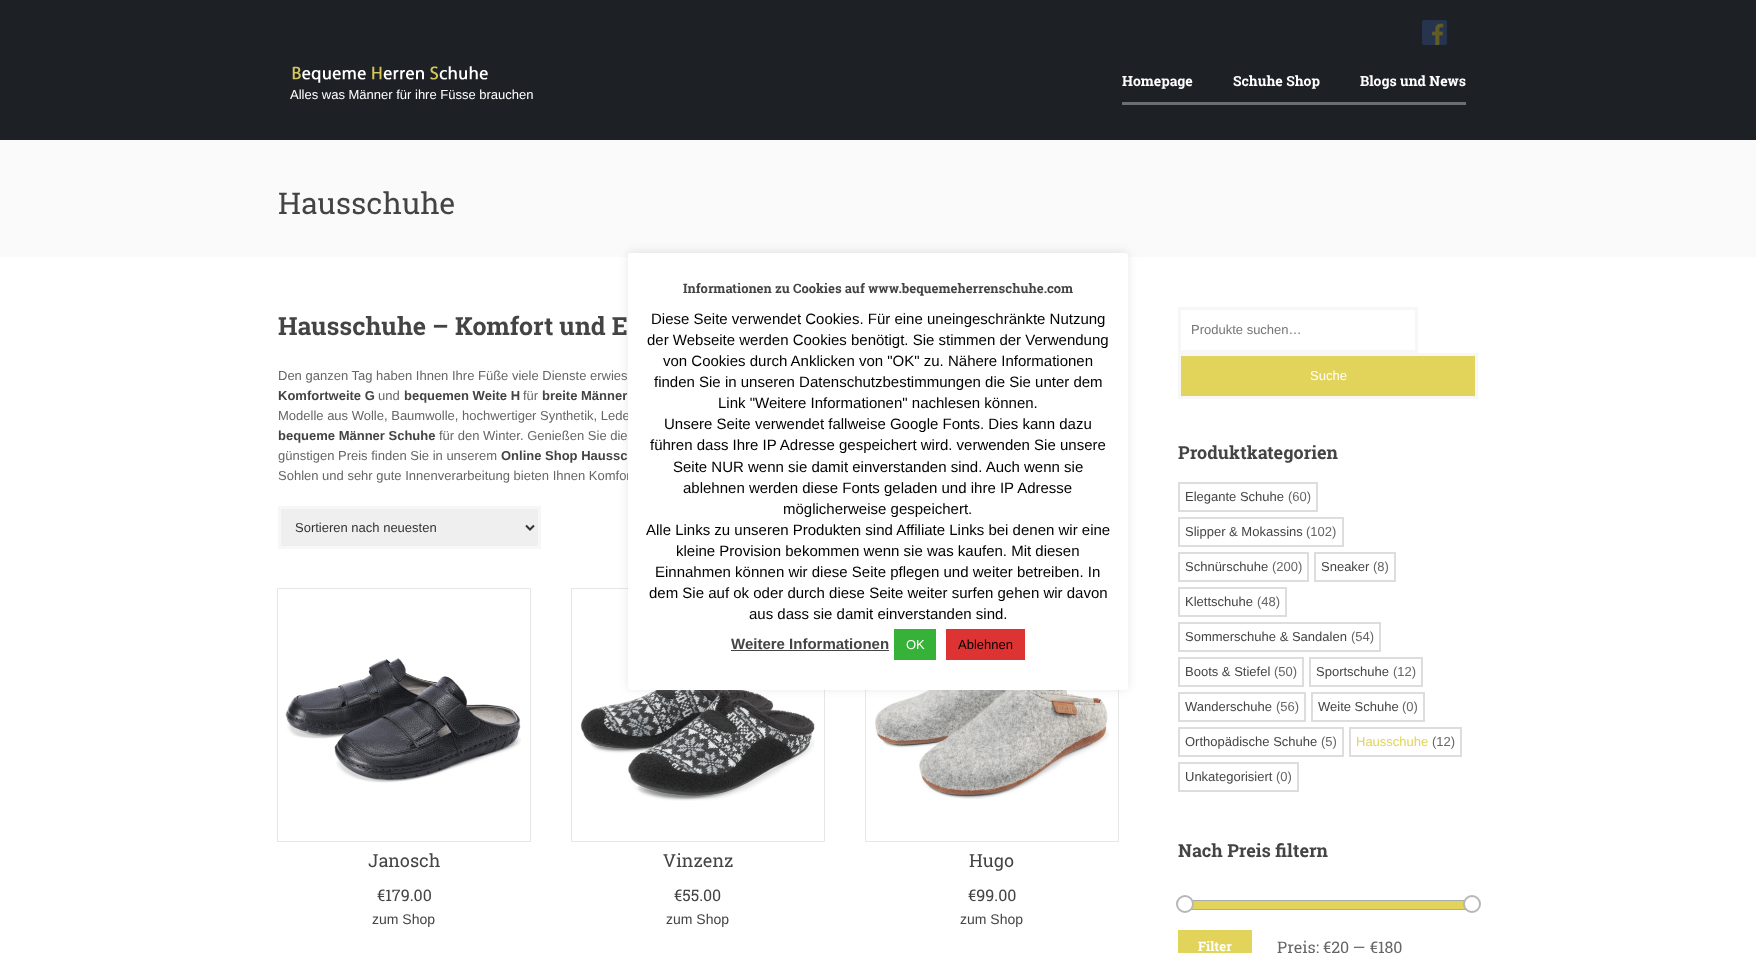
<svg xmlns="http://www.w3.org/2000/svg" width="1756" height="953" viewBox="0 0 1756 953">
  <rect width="100%" height="100%" fill="#fff"/>
  <path d="M0 0h1756v140H0z" fill="#1d2126"/>
  <image x="1422" y="20" width="25" height="25" href="img/1.png"/>
  <path d="M1122 102h344v3H1122z" fill="#6c6f72"/>
  <image x="292" y="66" width="196" height="17" href="img/2.png"/>
  <path d="M0 140h1756v117H0z" fill="#fafafa"/>
  <path d="M279.5 507.5h260v40H279.5z" fill="#efefef" stroke="#f7f7f7" stroke-width="3"/>
  <path d="M526 525.5L530 529.5L534 525.5" fill="none" stroke="#333" stroke-width="2"/>
  <path d="M277.5 588.5h253v253H277.5z" fill="none" stroke="#e6e6e6"/>
  <image x="285" y="658" width="236" height="125" href="img/3.png"/>
  <path d="M571.5 588.5h253v253H571.5z" fill="none" stroke="#e6e6e6"/>
  <image x="580" y="690" width="235" height="111" href="img/4.png"/>
  <path d="M865.5 588.5h253v253H865.5z" fill="none" stroke="#e6e6e6"/>
  <image x="875" y="690" width="234" height="109" href="img/5.png"/>
  <path d="M1179.5 308.5h237v43H1179.5z" fill="none" stroke="#f7f7f7" stroke-width="3"/>
  <path d="M1179.5 354.5h297v43H1179.5z" fill="#e2d45a" stroke="#f7f7f7" stroke-width="3"/>
  <path d="M1179 483h138v28H1179z" fill="none" stroke="#ddd" stroke-width="2"/>
  <path d="M1179 518h164v28H1179z" fill="none" stroke="#ddd" stroke-width="2"/>
  <path d="M1179 553h129v28H1179z" fill="none" stroke="#ddd" stroke-width="2"/>
  <path d="M1315 553h80v28H1315z" fill="none" stroke="#ddd" stroke-width="2"/>
  <path d="M1179 588h107v28H1179z" fill="none" stroke="#ddd" stroke-width="2"/>
  <path d="M1179 623h201v28H1179z" fill="none" stroke="#ddd" stroke-width="2"/>
  <path d="M1179 658h124v28H1179z" fill="none" stroke="#ddd" stroke-width="2"/>
  <path d="M1310 658h112v28H1310z" fill="none" stroke="#ddd" stroke-width="2"/>
  <path d="M1179 693h126v28H1179z" fill="none" stroke="#ddd" stroke-width="2"/>
  <path d="M1312 693h112v28H1312z" fill="none" stroke="#ddd" stroke-width="2"/>
  <path d="M1179 728h164v28H1179z" fill="none" stroke="#ddd" stroke-width="2"/>
  <path d="M1350 728h111v28H1350z" fill="none" stroke="#ddd" stroke-width="2"/>
  <path d="M1179 763h119v28H1179z" fill="none" stroke="#ddd" stroke-width="2"/>
  <rect x="1178.5" y="900.5" width="299" height="9" rx="2" fill="none" stroke="#aaa"/>
  <path d="M1192 901h273v8H1192z" fill="#e2d45a"/>
  <circle cx="1185" cy="904" r="8" fill="#fff" stroke="#b7b7b7" stroke-width="2"/>
  <circle cx="1472" cy="904" r="8" fill="#fff" stroke="#b7b7b7" stroke-width="2"/>
  <path d="M1178 930h74v23H1178z" fill="#e2d45a"/>
  <rect x="628" y="252" width="500" height="437" rx="3" fill="#acabab4d" filter="blur(5px)"/>
  <g font-family="Roboto Slab" font-size="14" font-weight="bold" fill="#fff">
    <text x="1122" y="86">Homepage</text>
    <text x="1233" y="86">Schuhe Shop</text>
    <text x="1360" y="86">Blogs und News</text>
  </g>
  <text x="290" y="99" font-family="Liberation Sans" font-size="13" fill="#fff">Alles was Männer für ihre Füsse brauchen</text>
  <text x="278" y="214" font-family="Roboto Slab" font-size="30" fill="#444">Hausschuhe</text>
  <text x="278" y="335" font-family="Roboto Slab" font-size="25" font-weight="bold" fill="#444">Hausschuhe – Komfort und E</text>
  <text x="278" y="380" font-family="Liberation Sans" font-size="13" fill="#666">Den ganzen Tag haben Ihnen Ihre Füße viele Dienste erwies</text>
  <text x="278" y="400" font-family="Liberation Sans" font-size="13" font-weight="bold" fill="#444">Komfortweite G</text>
  <text x="378" y="400" font-family="Liberation Sans" font-size="13" fill="#666">und</text>
  <text x="404" y="400" font-family="Liberation Sans" font-size="13" font-weight="bold" fill="#444">bequemen Weite H</text>
  <text x="523" y="400" font-family="Liberation Sans" font-size="13" fill="#666">für</text>
  <text x="542" y="400" font-family="Liberation Sans" font-size="13" font-weight="bold" fill="#444">breite Männer</text>
  <text x="278" y="420" font-family="Liberation Sans" font-size="13" fill="#666">Modelle aus Wolle, Baumwolle, hochwertiger Synthetik, Lede</text>
  <text x="278" y="440" font-family="Liberation Sans" font-size="13" font-weight="bold" fill="#444">bequeme Männer Schuhe</text>
  <g font-family="Liberation Sans" font-size="13" fill="#666">
    <text x="439" y="440">für den Winter. Genießen Sie die</text>
    <text x="278" y="460">günstigen Preis finden Sie in unserem</text>
  </g>
  <text x="501" y="460" font-family="Liberation Sans" font-size="13" font-weight="bold" fill="#444">Online Shop Haussc</text>
  <text x="278" y="480" font-family="Liberation Sans" font-size="13" fill="#666">Sohlen und sehr gute Innenverarbeitung bieten Ihnen Komfor</text>
  <text x="295" y="532" font-family="Liberation Sans" font-size="13" fill="#333">Sortieren nach neuesten</text>
  <text x="368" y="867" font-family="Roboto Slab" font-size="18" fill="#444">Janosch</text>
  <text x="377" y="901" font-family="Roboto Slab" font-size="16" fill="#444">€179.00</text>
  <text x="372" y="924" font-family="Liberation Sans" font-size="14" fill="#444">zum Shop</text>
  <text x="663" y="867" font-family="Roboto Slab" font-size="18" fill="#444">Vinzenz</text>
  <text x="674" y="901" font-family="Roboto Slab" font-size="16" fill="#444">€55.00</text>
  <text x="666" y="924" font-family="Liberation Sans" font-size="14" fill="#444">zum Shop</text>
  <text x="969" y="867" font-family="Roboto Slab" font-size="18" fill="#444">Hugo</text>
  <text x="968" y="901" font-family="Roboto Slab" font-size="16" fill="#444">€99.00</text>
  <text x="960" y="924" font-family="Liberation Sans" font-size="14" fill="#444">zum Shop</text>
  <text x="1191" y="334" font-family="Liberation Sans" font-size="13" fill="#757575">Produkte suchen…</text>
  <text x="1310" y="380" font-family="Liberation Sans" font-size="13" fill="#fff">Suche</text>
  <text x="1178" y="459" font-family="Roboto Slab" font-size="18" font-weight="bold" fill="#444">Produktkategorien</text>
  <text x="1185" y="501" font-family="Liberation Sans" font-size="13" fill="#444">Elegante Schuhe</text>
  <text x="1288" y="501" font-family="Liberation Sans" font-size="13" fill="#666">(60)</text>
  <text x="1185" y="536" font-family="Liberation Sans" font-size="13" fill="#444">Slipper &amp; Mokassins</text>
  <text x="1306" y="536" font-family="Liberation Sans" font-size="13" fill="#666">(102)</text>
  <text x="1185" y="571" font-family="Liberation Sans" font-size="13" fill="#444">Schnürschuhe</text>
  <text x="1272" y="571" font-family="Liberation Sans" font-size="13" fill="#666">(200)</text>
  <text x="1321" y="571" font-family="Liberation Sans" font-size="13" fill="#444">Sneaker</text>
  <text x="1373" y="571" font-family="Liberation Sans" font-size="13" fill="#666">(8)</text>
  <text x="1185" y="606" font-family="Liberation Sans" font-size="13" fill="#444">Klettschuhe</text>
  <text x="1257" y="606" font-family="Liberation Sans" font-size="13" fill="#666">(48)</text>
  <text x="1185" y="641" font-family="Liberation Sans" font-size="13" fill="#444">Sommerschuhe &amp; Sandalen</text>
  <text x="1351" y="641" font-family="Liberation Sans" font-size="13" fill="#666">(54)</text>
  <text x="1185" y="676" font-family="Liberation Sans" font-size="13" fill="#444">Boots &amp; Stiefel</text>
  <text x="1274" y="676" font-family="Liberation Sans" font-size="13" fill="#666">(50)</text>
  <text x="1316" y="676" font-family="Liberation Sans" font-size="13" fill="#444">Sportschuhe</text>
  <text x="1393" y="676" font-family="Liberation Sans" font-size="13" fill="#666">(12)</text>
  <text x="1185" y="711" font-family="Liberation Sans" font-size="13" fill="#444">Wanderschuhe</text>
  <text x="1276" y="711" font-family="Liberation Sans" font-size="13" fill="#666">(56)</text>
  <text x="1318" y="711" font-family="Liberation Sans" font-size="13" fill="#444">Weite Schuhe</text>
  <text x="1402" y="711" font-family="Liberation Sans" font-size="13" fill="#666">(0)</text>
  <text x="1185" y="746" font-family="Liberation Sans" font-size="13" fill="#444">Orthopädische Schuhe</text>
  <text x="1321" y="746" font-family="Liberation Sans" font-size="13" fill="#666">(5)</text>
  <text x="1356" y="746" font-family="Liberation Sans" font-size="13" fill="#e2d45a">Hausschuhe</text>
  <text x="1432" y="746" font-family="Liberation Sans" font-size="13" fill="#666">(12)</text>
  <text x="1185" y="781" font-family="Liberation Sans" font-size="13" fill="#444">Unkategorisiert</text>
  <text x="1276" y="781" font-family="Liberation Sans" font-size="13" fill="#666">(0)</text>
  <text x="1178" y="857" font-family="Roboto Slab" font-size="18" font-weight="bold" fill="#444">Nach Preis filtern</text>
  <text x="1198" y="951" font-family="Roboto Slab" font-size="13" font-weight="bold" fill="#fff">Filter</text>
  <text x="1277" y="953" font-family="Roboto Slab" font-size="16" fill="#666">Preis: €20 — €180</text>
  <rect x="628" y="253" width="500" height="437" rx="3" fill="#fff"/>
  <text x="683" y="293" font-family="Roboto Slab" font-size="13" font-weight="bold" fill="#444">Informationen zu Cookies auf www.bequemeherrenschuhe.com</text>
  <g font-family="Liberation Sans" font-size="15" fill="#000">
    <text x="651" y="324">Diese Seite verwendet Cookies. Für eine uneingeschränkte Nutzung</text>
    <text x="647" y="345">der Webseite werden Cookies benötigt. Sie stimmen der Verwendung</text>
    <text x="663" y="366">von Cookies durch Anklicken von "OK" zu. Nähere Informationen</text>
    <text x="654" y="387">finden Sie in unseren Datenschutzbestimmungen die Sie unter dem</text>
    <text x="718" y="408">Link "Weitere Informationen" nachlesen können.</text>
    <text x="664" y="429">Unsere Seite verwendet fallweise Google Fonts. Dies kann dazu</text>
    <text x="650" y="450">führen dass Ihre IP Adresse gespeichert wird. verwenden Sie unsere</text>
    <text x="673" y="472">Seite NUR wenn sie damit einverstanden sind. Auch wenn sie</text>
    <text x="683" y="493">ablehnen werden diese Fonts geladen und ihre IP Adresse</text>
    <text x="783" y="514">möglicherweise gespeichert.</text>
    <text x="646" y="535">Alle Links zu unseren Produkten sind Affiliate Links bei denen wir eine</text>
    <text x="676" y="556">kleine Provision bekommen wenn sie was kaufen. Mit diesen</text>
    <text x="655" y="577">Einnahmen können wir diese Seite pflegen und weiter betreiben. In</text>
    <text x="649" y="598">dem Sie auf ok oder durch diese Seite weiter surfen gehen wir davon</text>
    <text x="749" y="619">aus dass sie damit einverstanden sind.</text>
  </g>
  <text x="731" y="649" font-family="Liberation Sans" font-size="15" font-weight="bold" fill="#444">Weitere Informationen</text>
  <path d="M731 650h158v1H731z" fill="#444"/>
  <path d="M894 629h42v31H894z" fill="#37b239"/>
  <text x="906" y="649" font-family="Liberation Sans" font-size="13" fill="#fff">OK</text>
  <path d="M946 629h79v31H946z" fill="#d33"/>
  <text x="958" y="649" font-family="Liberation Sans" font-size="13" fill="#000">Ablehnen</text>
</svg>
